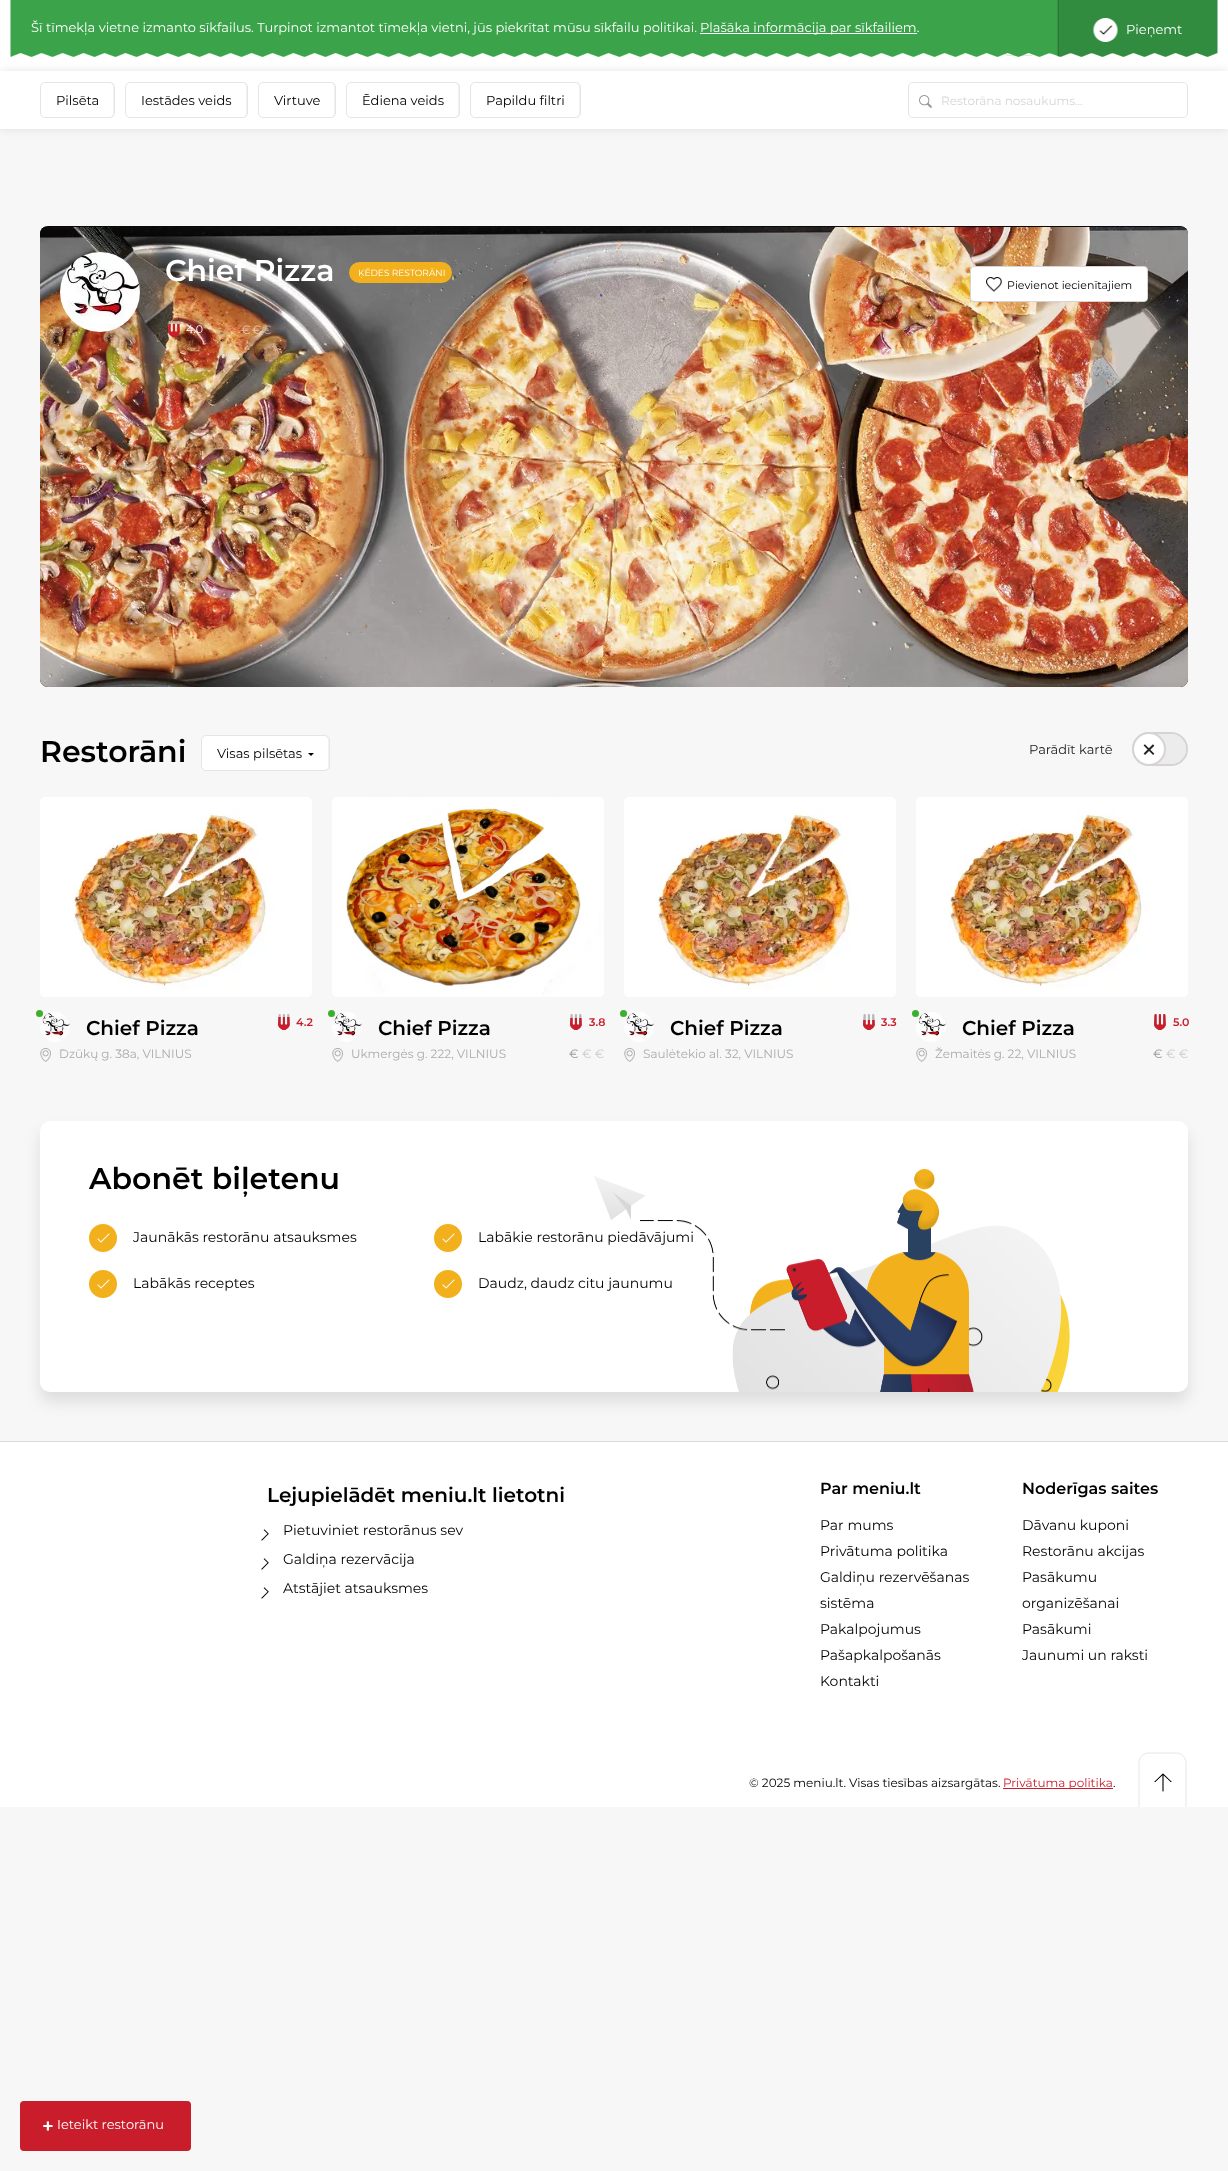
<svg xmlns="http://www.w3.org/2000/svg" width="1228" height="2171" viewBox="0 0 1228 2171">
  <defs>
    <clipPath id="clip1"><path d="M0 1401h1228v406H0z"/></clipPath>
  </defs>
  <rect width="100%" height="100%" fill="#f7f7f7"/>
  <path d="M0 0h1228v71H0z" fill="#fff"/>
  <path d="M0 71h1228v58H0z" fill="#0000001a" filter="blur(5px)"/>
  <path d="M1009 17H1032V56H1009C1006 56 1004 54 1004 51V22C1004 19 1006 17 1009 17ZM1009 18H1032V55H1009C1007 55 1005 53 1005 51V22C1005 20 1007 18 1009 18Z" fill="#e5e5e5" fill-rule="evenodd"/>
  <path d="M1045 17H1127C1130 17 1132 19 1132 22V49C1132 52 1130 54 1127 54H1045ZM1045 18H1127C1129 18 1131 20 1131 22V49C1131 51 1129 53 1127 53H1045Z" fill="#e6e6e6" fill-rule="evenodd"/>
  <image x="10" y="0" width="1208" height="57" href="img/1.png"/>
  <path d="M700 33h217v1H700z" fill="#fff"/>
  <path d="M1058 0h1v57H1058z" fill="#0000001a"/>
  <image x="1093" y="18" width="25" height="24" href="img/2.png"/>
  <path d="M0 71h1228v58H0z" fill="#fff"/>
  <path d="M109 117C114.5 117 114 113.5 114 108.5V91.5C114 86.5 114.5 83 109 83C111 83 113 85 113 87V113C113 115 111 117 109 117Z" fill="#f2f2f2"/>
  <rect x="40.5" y="82.5" width="74" height="35" rx="4.5" fill="none" stroke="#e5e5e5"/>
  <path d="M242 117C247.5 117 247 113.5 247 108.5V91.5C247 86.5 247.5 83 242 83C244 83 246 85 246 87V113C246 115 244 117 242 117Z" fill="#f2f2f2"/>
  <rect x="125.5" y="82.5" width="122" height="35" rx="4.5" fill="none" stroke="#e5e5e5"/>
  <path d="M330 117C335.5 117 335 113.5 335 108.5V91.5C335 86.5 335.5 83 330 83C332 83 334 85 334 87V113C334 115 332 117 330 117Z" fill="#f2f2f2"/>
  <rect x="258.5" y="82.5" width="77" height="35" rx="4.5" fill="none" stroke="#e5e5e5"/>
  <path d="M454 117C459.5 117 459 113.5 459 108.5V91.5C459 86.5 459.5 83 454 83C456 83 458 85 458 87V113C458 115 456 117 454 117Z" fill="#f2f2f2"/>
  <rect x="346.5" y="82.5" width="113" height="35" rx="4.5" fill="none" stroke="#e5e5e5"/>
  <path d="M575 117C580.5 117 580 113.5 580 108.5V91.5C580 86.5 580.5 83 575 83C577 83 579 85 579 87V113C579 115 577 117 575 117Z" fill="#f2f2f2"/>
  <rect x="470.5" y="82.5" width="110" height="35" rx="4.5" fill="none" stroke="#e5e5e5"/>
  <rect x="908.5" y="82.5" width="279" height="35" rx="4.5" fill="none" stroke="#e6e6e6"/>
  <image x="919" y="95" width="13" height="13" href="img/3.png"/>
  <rect x="40" y="226" width="1148" height="461" rx="8" fill="#0a0a0a"/>
  <image x="40" y="227" width="1148" height="460" href="img/4.png"/>
  <image x="60" y="252" width="80" height="80" href="img/5.png"/>
  <rect x="349" y="262" width="103" height="21" rx="10.5" fill="#f2b11c"/>
  <image x="168" y="321" width="12" height="16" href="img/6.png"/>
  <image x="168" y="324" width="12" height="13" href="img/7.png"/>
  <rect x="970.5" y="266.5" width="177" height="35" rx="3.5" fill="#fff" stroke="#d7d3d3"/>
  <image x="986" y="277" width="16" height="15" href="img/8.png"/>
  <rect x="201" y="735" width="129" height="36" rx="5" fill="#fff"/>
  <path d="M324 770C329.5 770 329 766.5 329 761.5V744.5C329 739.5 329.5 736 324 736C326 736 328 738 328 740V766C328 768 326 770 324 770Z" fill="#f2f2f2"/>
  <rect x="201.5" y="735.5" width="128" height="35" rx="4.5" fill="none" stroke="#0000001a"/>
  <path d="M308 753H314L311 756Z" fill="#000"/>
  <rect x="1133" y="733" width="54" height="32" rx="16" fill="none" stroke="#d7d3d3" stroke-width="2"/>
  <rect x="1134" y="734" width="52" height="30" rx="15" fill="#ececec"/>
  <circle cx="1149" cy="749" r="16" fill="#fff" stroke="#d7d3d3" stroke-width="2"/>
  <image x="40" y="797" width="272" height="200" href="img/9.png"/>
  <image x="40" y="1012" width="30" height="30" href="img/10.png"/>
  <circle cx="39.5" cy="1013.5" r="5.5" fill="#fbf6f6"/>
  <circle cx="39.5" cy="1013.5" r="3.5" fill="#39b12e"/>
  <image x="278" y="1014" width="12" height="16" href="img/11.png"/>
  <image x="278" y="1017" width="12" height="13" href="img/12.png"/>
  <image x="40" y="1048" width="11" height="14" href="img/13.png"/>
  <image x="332" y="797" width="272" height="200" href="img/14.png"/>
  <image x="332" y="1012" width="30" height="30" href="img/15.png"/>
  <circle cx="331.5" cy="1013.5" r="5.5" fill="#fbf6f6"/>
  <circle cx="331.5" cy="1013.5" r="3.5" fill="#39b12e"/>
  <image x="570" y="1014" width="12" height="16" href="img/11.png"/>
  <image x="570" y="1018" width="12" height="12" href="img/16.png"/>
  <image x="332" y="1048" width="11" height="14" href="img/13.png"/>
  <image x="624" y="797" width="272" height="200" href="img/9.png"/>
  <image x="624" y="1012" width="30" height="30" href="img/10.png"/>
  <circle cx="623.5" cy="1013.5" r="5.5" fill="#fbf6f6"/>
  <circle cx="623.5" cy="1013.5" r="3.5" fill="#39b12e"/>
  <image x="863" y="1014" width="12" height="16" href="img/11.png"/>
  <image x="863" y="1020" width="12" height="10" href="img/17.png"/>
  <image x="624" y="1048" width="11" height="14" href="img/13.png"/>
  <image x="916" y="797" width="272" height="200" href="img/9.png"/>
  <image x="916" y="1012" width="30" height="30" href="img/18.png"/>
  <circle cx="915.5" cy="1013.5" r="5.5" fill="#fbf6f6"/>
  <circle cx="915.5" cy="1013.5" r="3.5" fill="#39b12e"/>
  <image x="1154" y="1014" width="12" height="16" href="img/11.png"/>
  <image x="1154" y="1014" width="12" height="16" href="img/19.png"/>
  <image x="916" y="1048" width="11" height="14" href="img/13.png"/>
  <rect x="40" y="1131" width="1148" height="271" rx="10" fill="#0000001a" filter="blur(7.5px)"/>
  <rect x="40" y="1121" width="1148" height="271" rx="10" fill="#fff"/>
  <image x="594" y="1169" width="476" height="223" href="img/20.png"/>
  <image x="89" y="1224" width="28" height="28" href="img/21.png"/>
  <image x="434" y="1224" width="28" height="28" href="img/21.png"/>
  <image x="89" y="1270" width="28" height="28" href="img/21.png"/>
  <image x="434" y="1270" width="28" height="28" href="img/21.png"/>
  <path d="M0 1442h1228v365H0z" fill="#fff"/>
  <path d="M0 1441h1228v1H0z" fill="#d9d9d9"/>
  <path d="M1003 1788h110v1H1003z" fill="#c91d2c"/>
  <image x="1154" y="1773" width="18" height="19" href="img/22.png"/>
  <g clip-path="url(#clip1)">
    <path d="M1139 1813V1762.5C1139 1757.5 1143.5 1753 1148.5 1753H1176.5C1181.5 1753 1186 1757.5 1186 1762.5V1813Z" fill="none" stroke="#e6e6e6"/>
  </g>
  <rect x="20" y="2101" width="171" height="50" rx="4" fill="#c91d2c"/>
  <g font-family="Montserrat" font-size="13" fill="#fff">
    <text x="31" y="32">Šī tīmekļa vietne izmanto sīkfailus. Turpinot izmantot tīmekļa vietni, jūs piekrītat mūsu sīkfailu politikai.</text>
    <text x="700" y="32">Plašāka informācija par sīkfailiem.</text>
    <text x="1126" y="34">Pieņemt</text>
  </g>
  <g font-family="Montserrat" font-size="13" fill="#000">
    <text x="56" y="105">Pilsēta</text>
    <text x="141" y="105">Iestādes veids</text>
    <text x="274" y="105">Virtuve</text>
    <text x="362" y="105">Ēdiena veids</text>
    <text x="486" y="105">Papildu filtri</text>
  </g>
  <text x="941" y="105" font-family="Montserrat" font-size="12" fill="#d6d6d6">Restorāna nosaukums...</text>
  <text x="165" y="281" font-family="Montserrat" font-size="30" font-weight="600" fill="#fff">Chief Pizza</text>
  <text x="358" y="276" font-family="Montserrat" font-size="9" fill="#fff">ĶĒDES RESTORĀNI</text>
  <text x="186" y="333" font-family="Montserrat" font-size="11" fill="#fff">4.0</text>
  <text x="241" y="334" font-family="Montserrat" font-size="12" fill="#e9c8b1">€</text>
  <text x="252" y="334" font-family="Montserrat" font-size="12" fill="#e9cdb7">€</text>
  <text x="262" y="334" font-family="Montserrat" font-size="12" fill="#bda89a">€</text>
  <text x="1007" y="289" font-family="Montserrat" font-size="11" fill="#000">Pievienot iecienītajiem</text>
  <text x="40" y="762" font-family="Montserrat" font-size="30" font-weight="600" fill="#000">Restorāni</text>
  <text x="217" y="758" font-family="Montserrat" font-size="13" fill="#000">Visas pilsētas</text>
  <text x="1029" y="754" font-family="Montserrat" font-size="13" fill="#212529">Parādīt kartē</text>
  <text x="1135" y="751" transform="rotate(45 1135 751)" font-family="Montserrat" font-size="31" fill="#212529">+</text>
  <text x="86" y="1035" font-family="Montserrat" font-size="20" font-weight="600" fill="#000">Chief Pizza</text>
  <text x="296" y="1026" font-family="Montserrat" font-size="11" font-weight="600" fill="#c91d2c">4.2</text>
  <text x="59" y="1058" font-family="Montserrat" font-size="12" fill="#aaabad">Dzūkų g. 38a, VILNIUS</text>
  <text x="378" y="1035" font-family="Montserrat" font-size="20" font-weight="600" fill="#000">Chief Pizza</text>
  <text x="589" y="1026" font-family="Montserrat" font-size="11" font-weight="600" fill="#c91d2c">3.8</text>
  <text x="351" y="1058" font-family="Montserrat" font-size="12" fill="#aaabad">Ukmergės g. 222, VILNIUS</text>
  <text x="569" y="1058" font-family="Montserrat" font-size="12" fill="#969696">€</text>
  <text x="582" y="1058" font-family="Montserrat" font-size="12" fill="#cbcbcb">€ €</text>
  <text x="670" y="1035" font-family="Montserrat" font-size="20" font-weight="600" fill="#000">Chief Pizza</text>
  <text x="881" y="1026" font-family="Montserrat" font-size="11" font-weight="600" fill="#c91d2c">3.3</text>
  <text x="643" y="1058" font-family="Montserrat" font-size="12" fill="#aaabad">Saulėtekio al. 32, VILNIUS</text>
  <text x="962" y="1035" font-family="Montserrat" font-size="20" font-weight="600" fill="#000">Chief Pizza</text>
  <text x="1173" y="1026" font-family="Montserrat" font-size="11" font-weight="600" fill="#c91d2c">5.0</text>
  <text x="935" y="1058" font-family="Montserrat" font-size="12" fill="#aaabad">Žemaitės g. 22, VILNIUS</text>
  <text x="1153" y="1058" font-family="Montserrat" font-size="12" fill="#969696">€</text>
  <text x="1166" y="1058" font-family="Montserrat" font-size="12" fill="#cbcbcb">€ €</text>
  <text x="89" y="1189" font-family="Montserrat" font-size="30" font-weight="600" fill="#000">Abonēt biļetenu</text>
  <g font-family="Montserrat" font-size="14" fill="#000">
    <text x="133" y="1242">Jaunākās restorānu atsauksmes</text>
    <text x="478" y="1242">Labākie restorānu piedāvājumi</text>
    <text x="133" y="1288">Labākās receptes</text>
    <text x="478" y="1288">Daudz, daudz citu jaunumu</text>
  </g>
  <text x="267" y="1502" font-family="Montserrat" font-size="20" font-weight="600" fill="#000">Lejupielādēt meniu.lt lietotni</text>
  <g font-family="Montserrat" font-size="14" fill="#000">
    <text x="270" y="1535" transform="rotate(-135 270 1535)">L</text>
    <text x="283" y="1535">Pietuviniet restorānus sev</text>
    <text x="270" y="1564" transform="rotate(-135 270 1564)">L</text>
    <text x="283" y="1564">Galdiņa rezervācija</text>
    <text x="270" y="1593" transform="rotate(-135 270 1593)">L</text>
    <text x="283" y="1593">Atstājiet atsauksmes</text>
  </g>
  <text x="820" y="1494" font-family="Montserrat" font-size="16" font-weight="600" fill="#000">Par meniu.lt</text>
  <g font-family="Montserrat" font-size="14" fill="#000">
    <text x="820" y="1530">Par mums</text>
    <text x="820" y="1556">Privātuma politika</text>
    <text x="820" y="1582">Galdiņu rezervēšanas</text>
    <text x="820" y="1608">sistēma</text>
    <text x="820" y="1634">Pakalpojumus</text>
    <text x="820" y="1660">Pašapkalpošanās</text>
    <text x="820" y="1686">Kontakti</text>
  </g>
  <text x="1022" y="1494" font-family="Montserrat" font-size="16" font-weight="600" fill="#000">Noderīgas saites</text>
  <g font-family="Montserrat" font-size="14" fill="#000">
    <text x="1022" y="1530">Dāvanu kuponi</text>
    <text x="1022" y="1556">Restorānu akcijas</text>
    <text x="1022" y="1582">Pasākumu</text>
    <text x="1022" y="1608">organizēšanai</text>
    <text x="1022" y="1634">Pasākumi</text>
    <text x="1022" y="1660">Jaunumi un raksti</text>
  </g>
  <text x="749" y="1787" font-family="Montserrat" font-size="12" fill="#000">© 2025 meniu.lt. Visas tiesības aizsargātas.</text>
  <text x="1003" y="1787" font-family="Montserrat" font-size="12" fill="#c91d2c">Privātuma politika</text>
  <text x="1113" y="1787" font-family="Montserrat" font-size="12" fill="#000">.</text>
  <text x="42" y="2133" font-family="Montserrat" font-size="20" font-weight="600" fill="#fff">+</text>
  <text x="57" y="2129" font-family="Montserrat" font-size="13" fill="#fff">Ieteikt restorānu</text>
</svg>
